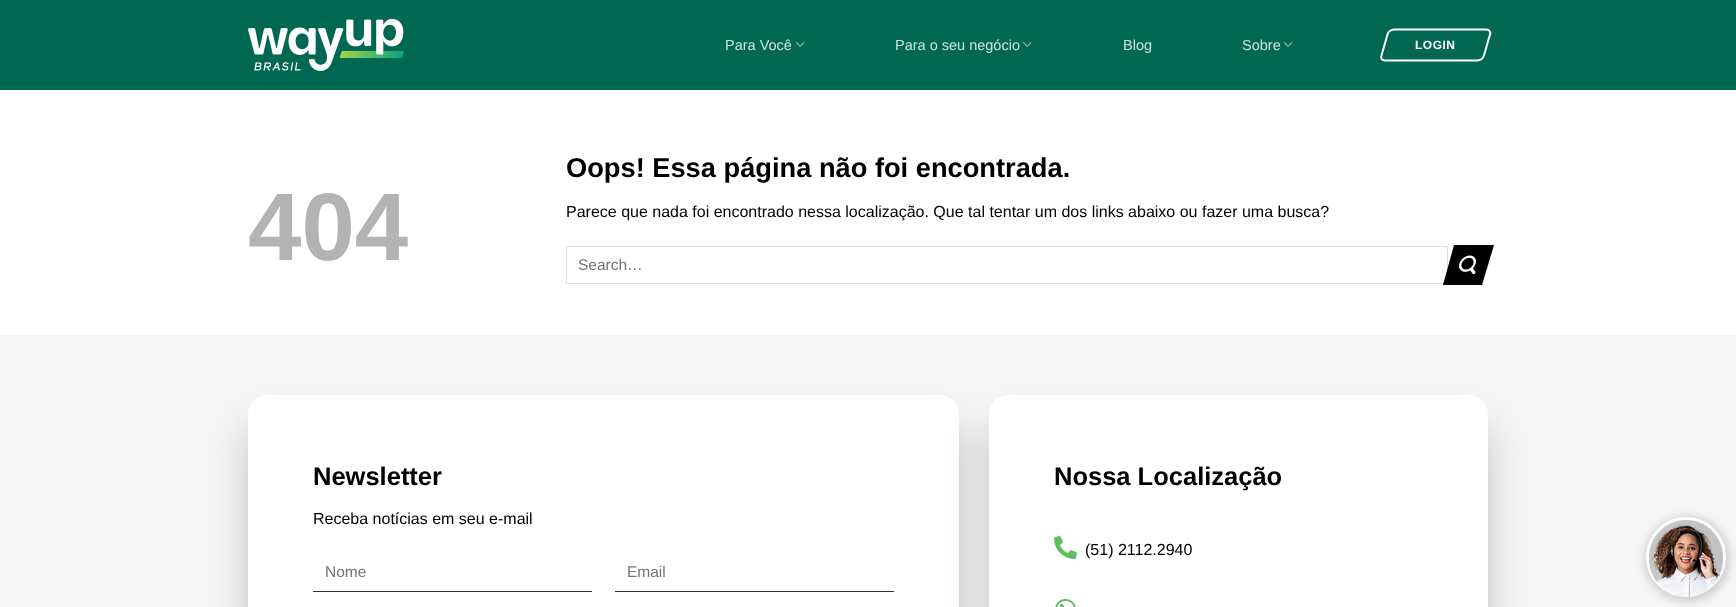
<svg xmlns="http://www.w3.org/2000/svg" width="1736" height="607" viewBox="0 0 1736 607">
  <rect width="100%" height="100%" fill="#fff"/>
  <path d="M0 0h1736v90H0z" fill="#006852"/>
  <image x="248" y="19" width="156" height="52" href="img/1.png"/>
  <image x="795" y="41" width="10" height="6" href="img/2.png"/>
  <image x="1022" y="41" width="10" height="6" href="img/2.png"/>
  <image x="1283" y="41" width="10" height="6" href="img/2.png"/>
  <path d="M1394 29.5H1486.5C1489 29.5 1491 32 1490 34.5L1484 55.5C1483 58 1480.5 60.5 1477.5 60.5H1385C1382 60.5 1380.5 58 1381.5 55.5L1387.5 34.5C1388 32 1391 29.5 1394 29.5Z" fill="none" stroke="#fff" stroke-width="2"/>
  <path d="M566.5 246.5h881v37H566.5z" fill="none" stroke="#ddd"/>
  <path d="M1454 245H1494L1482 285H1443Z" fill="#000"/>
  <path d="M1454.5 246H1493L1482 284H1443.5Z" fill="none" stroke="#0000000d"/>
  <image x="1459" y="255" width="17" height="20" href="img/3.png"/>
  <path d="M0 335h1736v272H0z" fill="#f6f6f6"/>
  <rect x="248" y="425" width="711" height="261" rx="19" fill="#00000033" filter="blur(20px)"/>
  <rect x="248" y="395" width="711" height="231" rx="19" fill="#fff"/>
  <path d="M313 591h279v1H313z" fill="#333"/>
  <path d="M615 591h279v1H615z" fill="#333"/>
  <rect x="989" y="425" width="499" height="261" rx="19" fill="#00000033" filter="blur(20px)"/>
  <rect x="989" y="395" width="499" height="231" rx="19" fill="#fff"/>
  <image x="1054" y="536" width="23" height="23" href="img/4.png"/>
  <image x="1055" y="599" width="21" height="8" href="img/5.png"/>
  <rect x="1644" y="516" width="86" height="86" rx="43" fill="#00000029" filter="blur(4px)"/>
  <circle cx="1686" cy="557" r="38.5" fill="none" stroke="#fff" stroke-width="3"/>
  <image x="1649" y="520" width="74" height="77" href="img/6.png"/>
  <g font-family="Liberation Sans" font-size="14.5" fill="#cce1dc">
    <text x="725" y="50">Para Você</text>
    <text x="895" y="50">Para o seu negócio</text>
    <text x="1123" y="50">Blog</text>
    <text x="1242" y="50">Sobre</text>
  </g>
  <text x="1415" y="49" font-family="Liberation Sans" font-size="12" font-weight="bold" letter-spacing="0.5" fill="#fff">LOGIN</text>
  <text x="248" y="260" font-family="Liberation Sans" font-size="96" font-weight="bold" fill="#b3b3b3">404</text>
  <text x="566" y="177" font-family="Liberation Sans" font-size="27.25" font-weight="bold" fill="#000">Oops! Essa página não foi encontrada.</text>
  <text x="566" y="217" font-family="Liberation Sans" font-size="16" fill="#000">Parece que nada foi encontrado nessa localização. Que tal tentar um dos links abaixo ou fazer uma busca?</text>
  <text x="578" y="270" font-family="Liberation Sans" font-size="15.5" fill="#757575">Search…</text>
  <text x="313" y="485" font-family="Liberation Sans" font-size="25.5" font-weight="bold" fill="#000">Newsletter</text>
  <text x="313" y="524" font-family="Liberation Sans" font-size="16" fill="#000">Receba notícias em seu e-mail</text>
  <g font-family="Liberation Sans" font-size="15.5" fill="#757575">
    <text x="325" y="577">Nome</text>
    <text x="627" y="577">Email</text>
  </g>
  <text x="1054" y="485" font-family="Liberation Sans" font-size="25.5" font-weight="bold" fill="#000">Nossa Localização</text>
  <text x="1085" y="555" font-family="Liberation Sans" font-size="16" fill="#000">(51) 2112.2940</text>
</svg>
